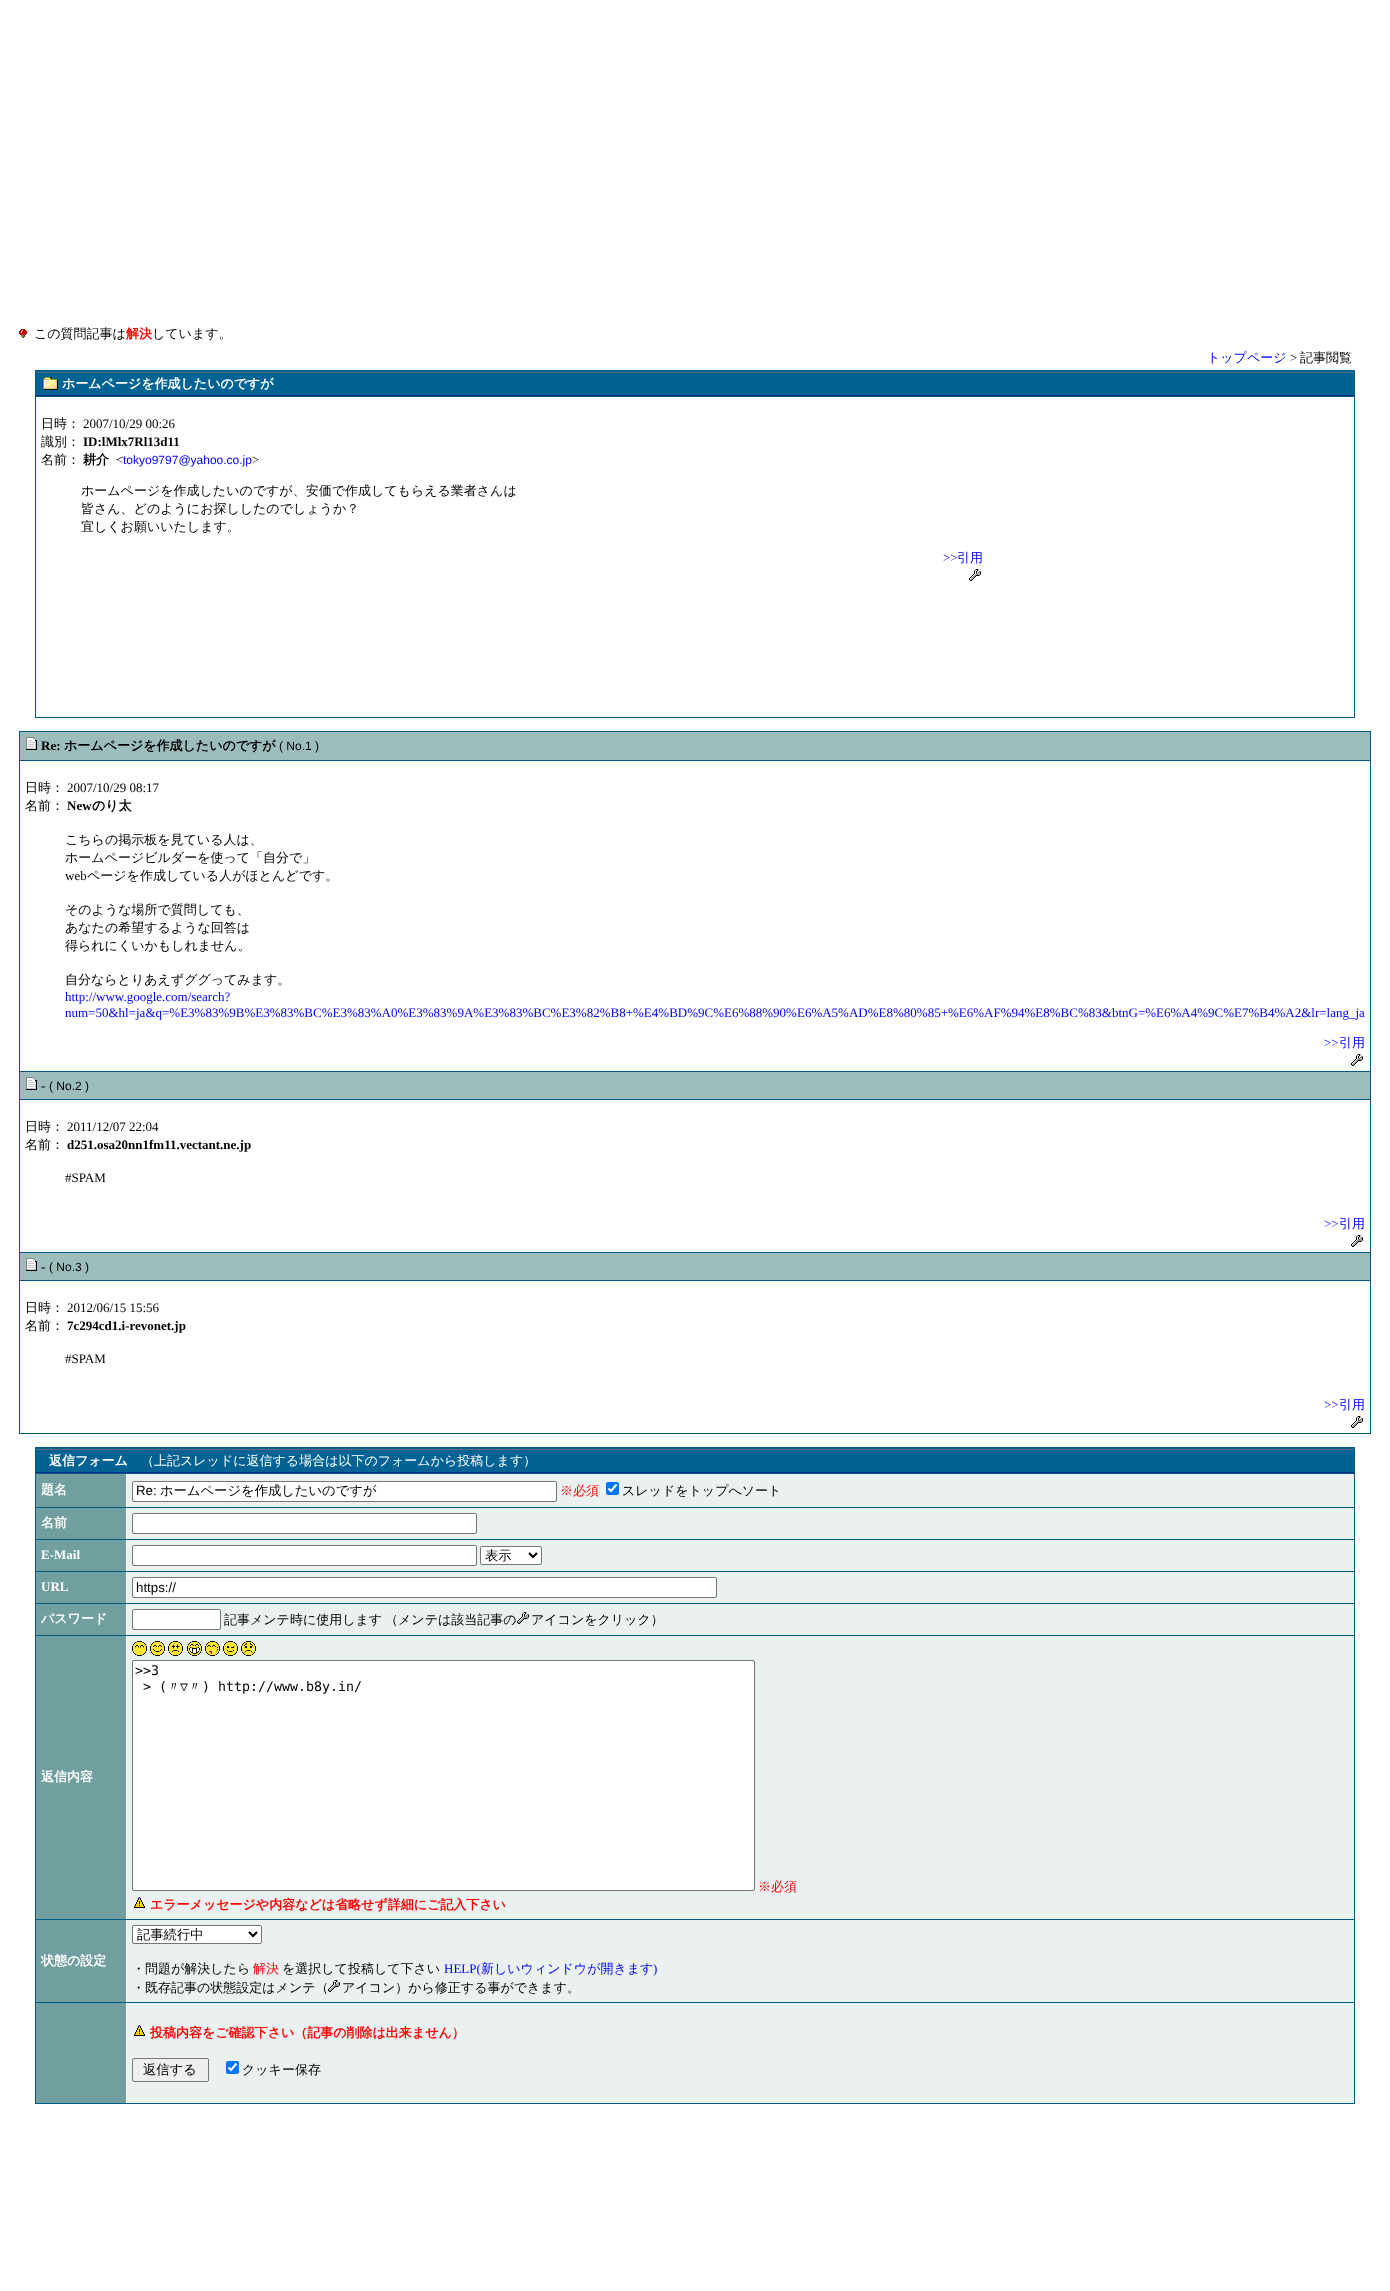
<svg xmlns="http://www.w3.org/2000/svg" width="1390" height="2291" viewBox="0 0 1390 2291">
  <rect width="100%" height="100%" fill="#fff"/>
  <image x="19" y="329" width="8" height="9" href="img/1.png"/>
  <path d="M35 370h1320v348H35z" fill="#005b88"/>
  <image x="36" y="371" width="1318" height="25" href="img/2.png"/>
  <image x="43" y="377" width="15" height="13" href="img/3.png"/>
  <path d="M36 397h1318v320H36z" fill="#fff"/>
  <image x="969" y="569" width="12" height="12" href="img/4.png"/>
  <path d="M19 731h1352v703H19z" fill="#005b88"/>
  <path d="M20 732h1350v28H20z" fill="#9dbdbd"/>
  <image x="26" y="737" width="11" height="13" href="img/5.png"/>
  <path d="M20 761h1350v310H20z" fill="#fff"/>
  <image x="1351" y="1054" width="12" height="12" href="img/4.png"/>
  <path d="M20 1072h1350v27H20z" fill="#9dbdbd"/>
  <image x="26" y="1077" width="11" height="13" href="img/5.png"/>
  <path d="M20 1100h1350v152H20z" fill="#fff"/>
  <image x="1351" y="1235" width="12" height="12" href="img/4.png"/>
  <path d="M20 1253h1350v27H20z" fill="#9dbdbd"/>
  <image x="26" y="1258" width="11" height="13" href="img/5.png"/>
  <path d="M20 1281h1350v152H20z" fill="#fff"/>
  <image x="1351" y="1416" width="12" height="12" href="img/4.png"/>
  <path d="M35 1447h1320v657H35z" fill="#005b88"/>
  <image x="36" y="1448" width="1318" height="25" href="img/2.png"/>
  <path d="M126 1474h1v33H126z" fill="#fff"/>
  <path d="M36 1474h90v33H36z" fill="#719f9f"/>
  <path d="M127 1474h1227v33H127z" fill="#ebf1f1"/>
  <rect x="132.5" y="1481.5" width="424" height="20" rx="1.5" fill="#fff" stroke="#767676"/>
  <rect x="606" y="1482" width="13" height="13" rx="2" fill="#0075ff"/>
  <path d="M608.5 1488.5L611 1491L616.5 1484.5" fill="none" stroke="#fff" stroke-width="2.1"/>
  <path d="M126 1508h1v31H126z" fill="#fff"/>
  <path d="M36 1508h90v31H36z" fill="#719f9f"/>
  <path d="M127 1508h1227v31H127z" fill="#ebf1f1"/>
  <rect x="132.5" y="1513.5" width="344" height="20" rx="1.5" fill="#fff" stroke="#767676"/>
  <path d="M126 1540h1v31H126z" fill="#fff"/>
  <path d="M36 1540h90v31H36z" fill="#719f9f"/>
  <path d="M127 1540h1227v31H127z" fill="#ebf1f1"/>
  <rect x="132.5" y="1545.5" width="344" height="20" rx="1.5" fill="#fff" stroke="#767676"/>
  <rect x="480.5" y="1546.5" width="61" height="18" rx="1.5" fill="#fff" stroke="#767676"/>
  <path d="M529 1553L533 1557L537 1553" fill="none" stroke="#000" stroke-width="2"/>
  <path d="M126 1572h1v31H126z" fill="#fff"/>
  <path d="M36 1572h90v31H36z" fill="#719f9f"/>
  <path d="M127 1572h1227v31H127z" fill="#ebf1f1"/>
  <rect x="132.5" y="1577.5" width="584" height="20" rx="1.5" fill="#fff" stroke="#767676"/>
  <path d="M126 1604h1v31H126z" fill="#fff"/>
  <path d="M36 1604h90v31H36z" fill="#719f9f"/>
  <path d="M127 1604h1227v31H127z" fill="#ebf1f1"/>
  <rect x="132.5" y="1609.5" width="88" height="20" rx="1.5" fill="#fff" stroke="#767676"/>
  <image x="517" y="1612" width="12" height="12" href="img/6.png"/>
  <path d="M126 1636h1v283H126z" fill="#fff"/>
  <path d="M36 1636h90v283H36z" fill="#719f9f"/>
  <path d="M127 1636h1227v283H127z" fill="#ebf1f1"/>
  <image x="132" y="1641" width="15" height="15" href="img/7.png"/>
  <image x="150" y="1641" width="15" height="15" href="img/8.png"/>
  <image x="168" y="1641" width="15" height="15" href="img/9.png"/>
  <image x="187" y="1641" width="15" height="15" href="img/10.png"/>
  <image x="205" y="1641" width="15" height="15" href="img/11.png"/>
  <image x="223" y="1641" width="15" height="15" href="img/12.png"/>
  <image x="241" y="1641" width="15" height="15" href="img/13.png"/>
  <rect x="132.5" y="1660.5" width="622" height="230" rx="1.5" fill="#fff" stroke="#767676"/>
  <image x="134" y="1897" width="11" height="11" href="img/14.png"/>
  <path d="M126 1920h1v82H126z" fill="#fff"/>
  <path d="M36 1920h90v82H36z" fill="#719f9f"/>
  <path d="M127 1920h1227v82H127z" fill="#ebf1f1"/>
  <rect x="132.5" y="1925.5" width="129" height="18" rx="1.5" fill="#fff" stroke="#767676"/>
  <path d="M249 1932L253 1936L257 1932" fill="none" stroke="#000" stroke-width="2"/>
  <image x="328" y="1980" width="12" height="12" href="img/6.png"/>
  <path d="M126 2003h1v100H126z" fill="#fff"/>
  <path d="M36 2003h90v100H36z" fill="#719f9f"/>
  <path d="M127 2003h1227v100H127z" fill="#ebf1f1"/>
  <image x="134" y="2025" width="11" height="11" href="img/14.png"/>
  <rect x="132.5" y="2058.5" width="76" height="23" rx="1.5" fill="#efefef" stroke="#767676"/>
  <rect x="226" y="2061" width="13" height="13" rx="2" fill="#0075ff"/>
  <path d="M228.5 2067.5L231 2070L236.5 2063.5" fill="none" stroke="#fff" stroke-width="2.1"/>
  <text x="34" y="338" font-family="WenQuanYi Zen Hei" font-size="13" font-weight="500" fill="#000">この質問記事は</text>
  <text x="126" y="338" font-family="WenQuanYi Zen Hei" font-size="13" font-weight="bold" fill="#f00">解決</text>
  <text x="152" y="338" font-family="WenQuanYi Zen Hei" font-size="13" font-weight="500" fill="#000">しています。</text>
  <text x="1207" y="362" font-family="WenQuanYi Zen Hei" font-size="13" font-weight="500" fill="#00f">トップページ</text>
  <text x="1290" y="362" font-family="Liberation Serif" font-size="13" fill="#000">&gt;</text>
  <text x="1300" y="362" font-family="WenQuanYi Zen Hei" font-size="13" font-weight="500" fill="#000">記事閲覧</text>
  <text x="62" y="388" font-family="WenQuanYi Zen Hei" font-size="13" font-weight="bold" fill="#fff">ホームページを作成したいのですが</text>
  <text x="41" y="428" font-family="WenQuanYi Zen Hei" font-size="13" font-weight="500" fill="#000">日時：</text>
  <text x="83" y="428" font-family="Liberation Serif" font-size="13" fill="#000">2007/10/29 00:26</text>
  <text x="41" y="446" font-family="WenQuanYi Zen Hei" font-size="13" font-weight="500" fill="#000">識別：</text>
  <text x="83" y="446" font-family="Liberation Serif" font-size="13" font-weight="bold" fill="#000">ID:lMlx7Rl13d11</text>
  <text x="41" y="464" font-family="WenQuanYi Zen Hei" font-size="13" font-weight="500" fill="#000">名前：</text>
  <text x="83" y="464" font-family="WenQuanYi Zen Hei" font-size="13" font-weight="bold" fill="#000">耕介</text>
  <text x="116" y="464" font-family="Liberation Serif" font-size="13" fill="#000">&lt;</text>
  <text x="123" y="464" font-family="Liberation Sans" font-size="12" fill="#00f">tokyo9797@yahoo.co.jp</text>
  <text x="252" y="464" font-family="Liberation Serif" font-size="13" fill="#000">&gt;</text>
  <g font-family="WenQuanYi Zen Hei" font-size="13" font-weight="500" fill="#000">
    <text x="81" y="495">ホームページを作成したいのですが、安価で作成してもらえる業者さんは</text>
    <text x="81" y="513">皆さん、どのようにお探ししたのでしょうか？</text>
    <text x="81" y="531">宜しくお願いいたします。</text>
  </g>
  <text x="943" y="562" font-family="Liberation Serif" font-size="13" fill="#00f">&gt;&gt;</text>
  <text x="957" y="562" font-family="WenQuanYi Zen Hei" font-size="13" font-weight="500" fill="#00f">引用</text>
  <text x="41" y="750" font-family="Liberation Serif" font-size="13" font-weight="bold" fill="#000">Re:</text>
  <text x="64" y="750" font-family="WenQuanYi Zen Hei" font-size="13" font-weight="bold" fill="#000">ホームページを作成したいのですが</text>
  <text x="279" y="750" font-family="Liberation Sans" font-size="12" fill="#000">( No.1 )</text>
  <text x="25" y="792" font-family="WenQuanYi Zen Hei" font-size="13" font-weight="500" fill="#000">日時：</text>
  <text x="67" y="792" font-family="Liberation Serif" font-size="13" fill="#000">2007/10/29 08:17</text>
  <text x="25" y="810" font-family="WenQuanYi Zen Hei" font-size="13" font-weight="500" fill="#000">名前：</text>
  <text x="67" y="810" font-family="Liberation Serif" font-size="13" font-weight="bold" fill="#000">New</text>
  <text x="92" y="810" font-family="WenQuanYi Zen Hei" font-size="13" font-weight="bold" fill="#000">のり太</text>
  <g font-family="WenQuanYi Zen Hei" font-size="13" font-weight="500" fill="#000">
    <text x="65" y="844">こちらの掲示板を見ている人は、</text>
    <text x="65" y="862">ホームページビルダーを使って「自分で」</text>
  </g>
  <text x="65" y="880" font-family="Liberation Serif" font-size="13" fill="#000">web</text>
  <g font-family="WenQuanYi Zen Hei" font-size="13" font-weight="500" fill="#000">
    <text x="87" y="880">ページを作成している人がほとんどです。</text>
    <text x="65" y="914">そのような場所で質問しても、</text>
    <text x="65" y="932">あなたの希望するような回答は</text>
    <text x="65" y="950">得られにくいかもしれません。</text>
    <text x="65" y="984">自分ならとりあえずググってみます。</text>
  </g>
  <g font-family="Liberation Serif" font-size="13" fill="#00f">
    <text x="65" y="1001">http://www.google.com/search?</text>
    <text x="65" y="1017">num=50&amp;hl=ja&amp;q=%E3%83%9B%E3%83%BC%E3%83%A0%E3%83%9A%E3%83%BC%E3%82%B8+%E4%BD%9C%E6%88%90%E6%A5%AD%E8%80%85+%E6%AF%94%E8%BC%83&amp;btnG=%E6%A4%9C%E7%B4%A2&amp;lr=lang_ja</text>
    <text x="1324" y="1047">&gt;&gt;</text>
  </g>
  <text x="1339" y="1047" font-family="WenQuanYi Zen Hei" font-size="13" font-weight="500" fill="#00f">引用</text>
  <text x="41" y="1090" font-family="Liberation Serif" font-size="13" font-weight="bold" fill="#000">-</text>
  <text x="49" y="1090" font-family="Liberation Sans" font-size="12" fill="#000">( No.2 )</text>
  <text x="25" y="1131" font-family="WenQuanYi Zen Hei" font-size="13" font-weight="500" fill="#000">日時：</text>
  <text x="67" y="1131" font-family="Liberation Serif" font-size="13" fill="#000">2011/12/07 22:04</text>
  <text x="25" y="1149" font-family="WenQuanYi Zen Hei" font-size="13" font-weight="500" fill="#000">名前：</text>
  <text x="67" y="1149" font-family="Liberation Serif" font-size="13" font-weight="bold" fill="#000">d251.osa20nn1fm11.vectant.ne.jp</text>
  <text x="65" y="1182" font-family="Liberation Serif" font-size="13" fill="#000">#SPAM</text>
  <text x="1324" y="1228" font-family="Liberation Serif" font-size="13" fill="#00f">&gt;&gt;</text>
  <text x="1339" y="1228" font-family="WenQuanYi Zen Hei" font-size="13" font-weight="500" fill="#00f">引用</text>
  <text x="41" y="1271" font-family="Liberation Serif" font-size="13" font-weight="bold" fill="#000">-</text>
  <text x="49" y="1271" font-family="Liberation Sans" font-size="12" fill="#000">( No.3 )</text>
  <text x="25" y="1312" font-family="WenQuanYi Zen Hei" font-size="13" font-weight="500" fill="#000">日時：</text>
  <text x="67" y="1312" font-family="Liberation Serif" font-size="13" fill="#000">2012/06/15 15:56</text>
  <text x="25" y="1330" font-family="WenQuanYi Zen Hei" font-size="13" font-weight="500" fill="#000">名前：</text>
  <text x="67" y="1330" font-family="Liberation Serif" font-size="13" font-weight="bold" fill="#000">7c294cd1.i-revonet.jp</text>
  <text x="65" y="1363" font-family="Liberation Serif" font-size="13" fill="#000">#SPAM</text>
  <text x="1324" y="1409" font-family="Liberation Serif" font-size="13" fill="#00f">&gt;&gt;</text>
  <text x="1339" y="1409" font-family="WenQuanYi Zen Hei" font-size="13" font-weight="500" fill="#00f">引用</text>
  <text x="49" y="1465" font-family="WenQuanYi Zen Hei" font-size="13" font-weight="bold" fill="#fff">返信フォーム</text>
  <text x="141" y="1465" font-family="WenQuanYi Zen Hei" font-size="13" font-weight="500" fill="#fff">（上記スレッドに返信する場合は以下のフォームから投稿します）</text>
  <text x="41" y="1494" font-family="WenQuanYi Zen Hei" font-size="13" font-weight="bold" fill="#fff">題名</text>
  <text x="136" y="1495" font-family="Liberation Sans" font-size="13.3" fill="#000">Re:</text>
  <text x="160" y="1495" font-family="WenQuanYi Zen Hei" font-size="13.3" font-weight="500" fill="#000">ホームページを作成したいのですが</text>
  <text x="560" y="1495" font-family="WenQuanYi Zen Hei" font-size="13" font-weight="500" fill="#f00">※必須</text>
  <text x="622" y="1495" font-family="WenQuanYi Zen Hei" font-size="13" font-weight="500" fill="#000">スレッドをトップへソート</text>
  <text x="41" y="1527" font-family="WenQuanYi Zen Hei" font-size="13" font-weight="bold" fill="#fff">名前</text>
  <text x="41" y="1559" font-family="Liberation Serif" font-size="13" font-weight="bold" fill="#fff">E-Mail</text>
  <text x="485" y="1560" font-family="WenQuanYi Zen Hei" font-size="13.3" font-weight="500" fill="#000">表示</text>
  <text x="41" y="1591" font-family="Liberation Serif" font-size="13" font-weight="bold" fill="#fff">URL</text>
  <text x="136" y="1592" font-family="Liberation Sans" font-size="13.3" fill="#000">https://</text>
  <text x="41" y="1623" font-family="WenQuanYi Zen Hei" font-size="13" font-weight="bold" fill="#fff">パスワード</text>
  <g font-family="WenQuanYi Zen Hei" font-size="13" font-weight="500" fill="#000">
    <text x="224" y="1624" word-spacing="-1">記事メンテ時に使用します （メンテは該当記事の</text>
    <text x="531" y="1624">アイコンをクリック）</text>
  </g>
  <text x="41" y="1781" font-family="WenQuanYi Zen Hei" font-size="13" font-weight="bold" fill="#fff">返信内容</text>
  <g font-family="DejaVu Sans Mono" font-size="13.3" fill="#000">
    <text x="135" y="1675">&gt;&gt;3</text>
    <text x="143" y="1691">&gt; (</text>
  </g>
  <text x="167" y="1691" font-family="WenQuanYi Zen Hei" font-size="13.3" font-weight="500" fill="#000">〃</text>
  <text x="180" y="1691" font-family="DejaVu Sans Mono" font-size="13.3" fill="#000">▽</text>
  <text x="188" y="1691" font-family="WenQuanYi Zen Hei" font-size="13.3" font-weight="500" fill="#000">〃</text>
  <text x="202" y="1691" font-family="DejaVu Sans Mono" font-size="13.3" fill="#000">) http://www.b8y.in/</text>
  <text x="758" y="1891" font-family="WenQuanYi Zen Hei" font-size="13" font-weight="500" fill="#f00">※必須</text>
  <text x="150" y="1909" font-family="WenQuanYi Zen Hei" font-size="13" font-weight="bold" fill="#f00">エラーメッセージや内容などは省略せず詳細にご記入下さい</text>
  <text x="41" y="1965" font-family="WenQuanYi Zen Hei" font-size="13" font-weight="bold" fill="#fff">状態の設定</text>
  <text x="137" y="1939" font-family="WenQuanYi Zen Hei" font-size="13.3" font-weight="500" fill="#000">記事続行中</text>
  <text x="132" y="1973" font-family="WenQuanYi Zen Hei" font-size="13" font-weight="500" fill="#000">・問題が解決したら</text>
  <text x="253" y="1973" font-family="WenQuanYi Zen Hei" font-size="13" font-weight="500" fill="#f00">解決</text>
  <text x="282" y="1973" font-family="WenQuanYi Zen Hei" font-size="13" font-weight="500" fill="#000">を選択して投稿して下さい</text>
  <text x="444" y="1973" font-family="Liberation Serif" font-size="13" fill="#00f">HELP(</text>
  <text x="481" y="1973" font-family="WenQuanYi Zen Hei" font-size="13" font-weight="500" fill="#00f">新しいウィンドウが開きます</text>
  <text x="653" y="1973" font-family="Liberation Serif" font-size="13" fill="#00f">)</text>
  <g font-family="WenQuanYi Zen Hei" font-size="13" font-weight="500" fill="#000">
    <text x="132" y="1992">・既存記事の状態設定はメンテ（</text>
    <text x="342" y="1992">アイコン）から修正する事ができます。</text>
  </g>
  <text x="150" y="2037" font-family="WenQuanYi Zen Hei" font-size="13" font-weight="bold" fill="#f00">投稿内容をご確認下さい（記事の削除は出来ません）</text>
  <text x="143" y="2074" font-family="WenQuanYi Zen Hei" font-size="13.3" font-weight="500" fill="#000">返信する</text>
  <text x="242" y="2074" font-family="WenQuanYi Zen Hei" font-size="13" font-weight="500" fill="#000">クッキー保存</text>
</svg>
